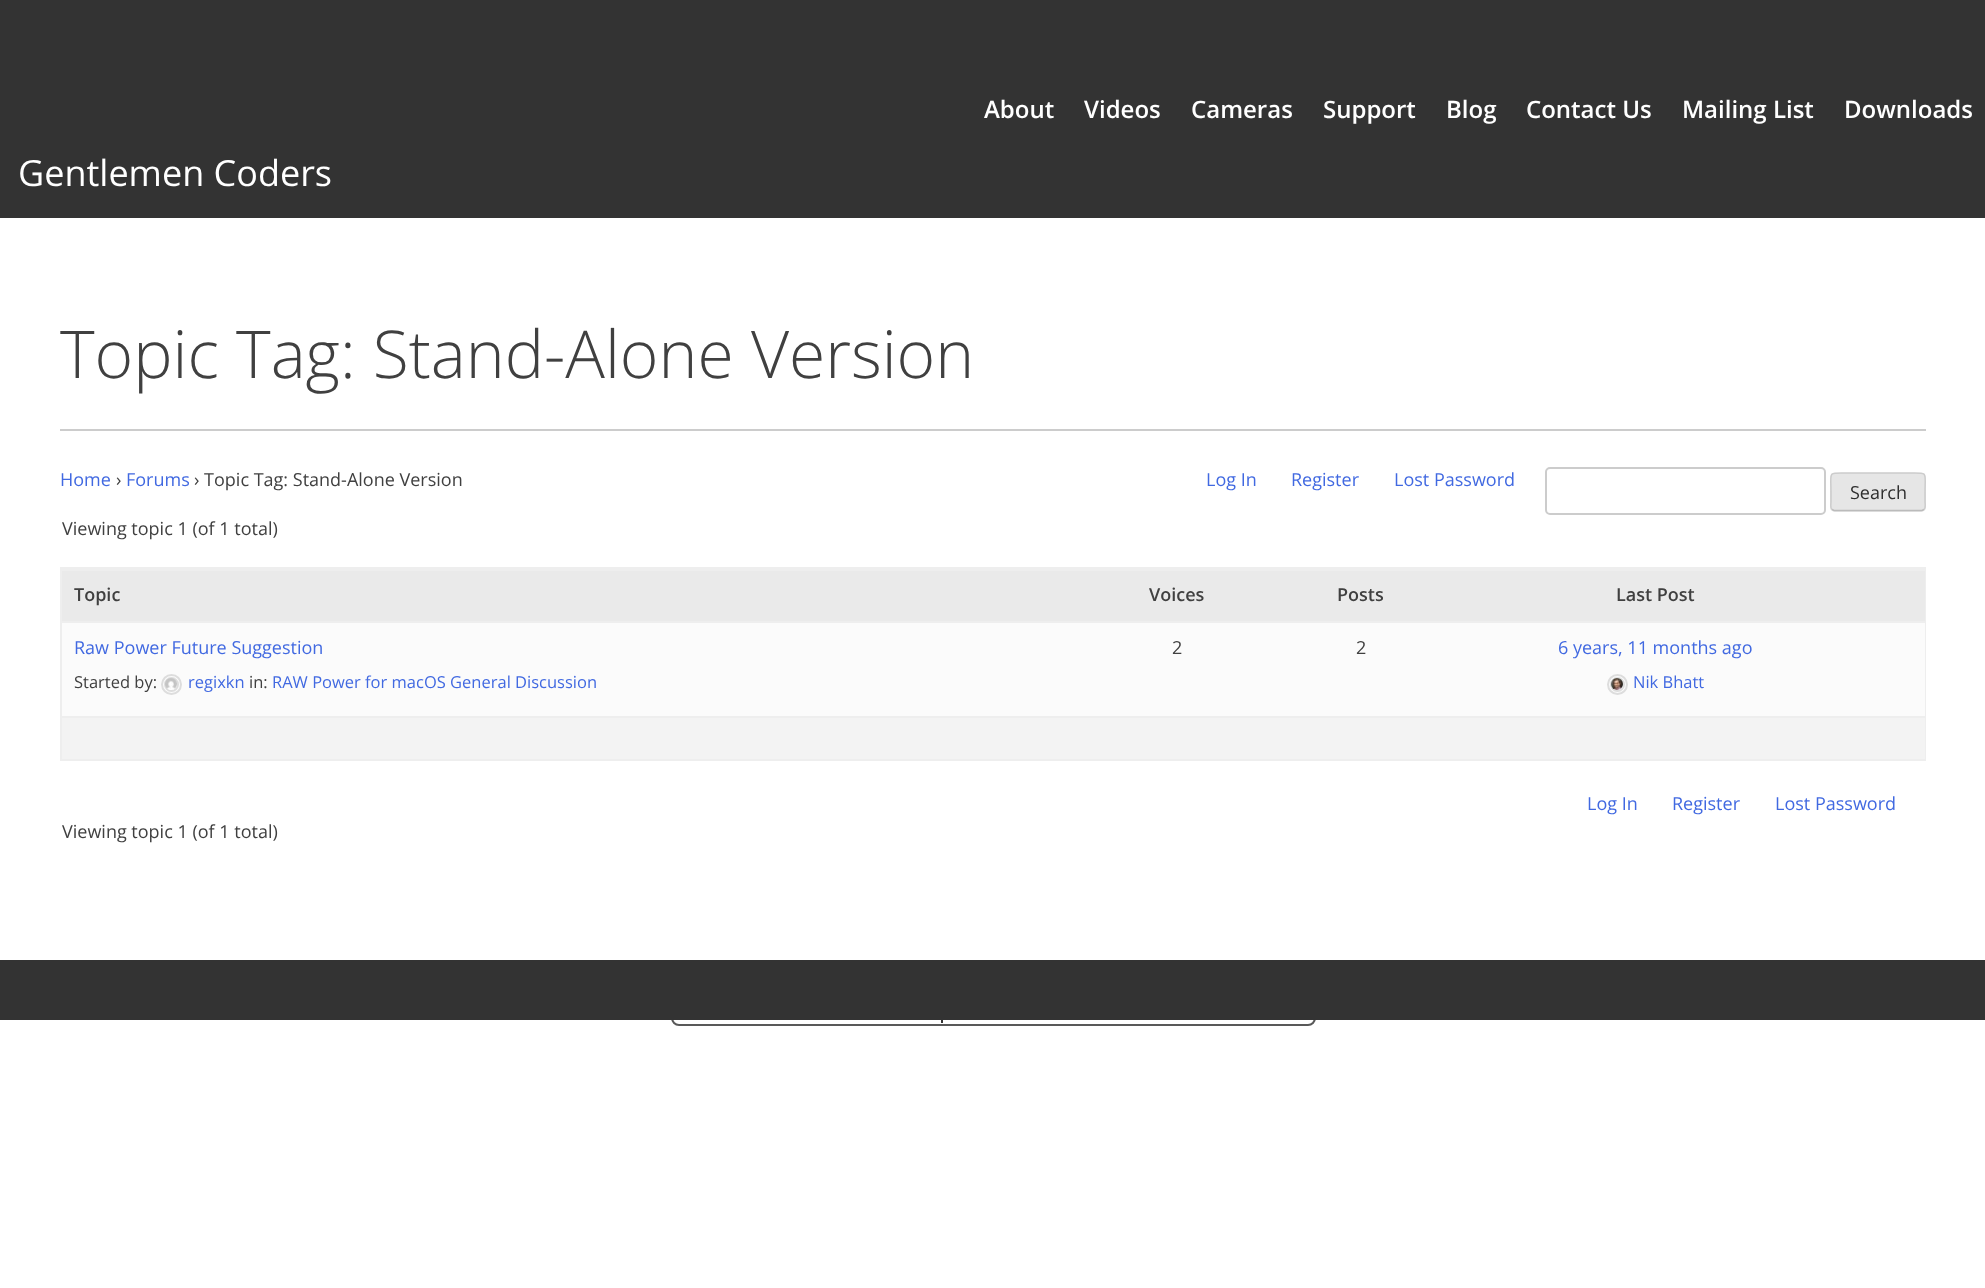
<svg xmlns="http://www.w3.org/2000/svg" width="1985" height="1288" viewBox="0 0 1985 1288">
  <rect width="100%" height="100%" fill="#fff"/>
  <path d="M0 0h1985v218H0z" fill="#333"/>
  <path d="M60 429h1866v2H60z" fill="#ccc"/>
  <rect x="1546" y="468" width="279" height="46" rx="4" fill="none" stroke="#ccc" stroke-width="2"/>
  <rect x="1830" y="473" width="96" height="39" rx="5" fill="#e6e6e6"/>
  <path d="M1924 509.5L1922 510.5H1834L1832 509.5" fill="none" stroke="#bbb" stroke-width="1.5"/>
  <path d="M1832 509.5C1830 508 1831 504 1831 502V492C1831 470.5 1827 473 1849 473H1907C1929 473 1925 470.5 1925 492V502C1925 504 1926 508 1924 509.5" fill="none" stroke="#ccc" stroke-width="1.5"/>
  <path d="M61 568h1864v192H61z" fill="none" stroke="#eee" stroke-width="2"/>
  <path d="M62 571h1863v50H62z" fill="#eaeaea"/>
  <path d="M62 569h1863v2H62z" fill="#eee"/>
  <path d="M62 623h1863v93H62z" fill="#fbfbfb"/>
  <path d="M62 621h1863v2H62z" fill="#eee"/>
  <circle cx="171.5" cy="684.5" r="9.5" fill="none" stroke="#ddd" stroke-width="2"/>
  <circle cx="171.5" cy="684.5" r="6.5" fill="none" stroke="#ddd" stroke-width="2"/>
  <image x="165" y="678" width="12" height="12" href="img/1.png"/>
  <circle cx="1617.5" cy="684.5" r="9.5" fill="none" stroke="#ddd" stroke-width="2"/>
  <circle cx="1617.5" cy="684.5" r="6.5" fill="none" stroke="#ddd" stroke-width="2"/>
  <image x="1611" y="678" width="12" height="12" href="img/2.png"/>
  <path d="M62 718h1863v41H62z" fill="#f3f3f3"/>
  <path d="M62 716h1863v2H62z" fill="#eee"/>
  <rect x="672" y="973" width="643" height="52" rx="7" fill="none" stroke="#595959" stroke-width="2"/>
  <path d="M0 960h1985v60H0z" fill="#333"/>
  <path d="M941 1020h2v3H941z" fill="#333"/>
  <g font-family="Open Sans" font-size="24" font-weight="600" fill="#fff">
    <text x="984" y="118">About</text>
    <text x="1084" y="118">Videos</text>
    <text x="1191" y="118">Cameras</text>
    <text x="1323" y="118">Support</text>
    <text x="1446" y="118">Blog</text>
    <text x="1526" y="118">Contact Us</text>
    <text x="1682" y="118">Mailing List</text>
    <text x="1844" y="118">Downloads</text>
  </g>
  <text x="18" y="186" font-family="Open Sans" font-size="36" fill="#fff">Gentlemen Coders</text>
  <text x="60" y="378" font-family="Open Sans" font-size="66" font-weight="300" fill="#404040">Topic Tag: Stand-Alone Version</text>
  <text x="60" y="486" font-family="Open Sans" font-size="18" fill="#4169e1">Home</text>
  <text x="116" y="486" font-family="Open Sans" font-size="18" fill="#404040">›</text>
  <text x="126" y="486" font-family="Open Sans" font-size="18" fill="#4169e1">Forums</text>
  <text x="194" y="486" font-family="Open Sans" font-size="18" fill="#404040">› Topic Tag: Stand-Alone Version</text>
  <g font-family="Open Sans" font-size="18" fill="#4169e1">
    <text x="1206" y="486">Log In</text>
    <text x="1291" y="486">Register</text>
    <text x="1394" y="486">Lost Password</text>
  </g>
  <text x="1850" y="499" font-family="Open Sans" font-size="18" fill="#2e2e2e">Search</text>
  <text x="62" y="535" font-family="Open Sans" font-size="18" fill="#404040">Viewing topic 1 (of 1 total)</text>
  <g font-family="Open Sans" font-size="18" font-weight="600" fill="#404040">
    <text x="74" y="601">Topic</text>
    <text x="1149" y="601">Voices</text>
    <text x="1337" y="601">Posts</text>
    <text x="1616" y="601">Last Post</text>
  </g>
  <text x="74" y="654" font-family="Open Sans" font-size="18" fill="#4169e1">Raw Power Future Suggestion</text>
  <text x="74" y="688" font-family="Open Sans" font-size="16.5" fill="#404040">Started by:</text>
  <text x="188" y="688" font-family="Open Sans" font-size="16.5" fill="#4169e1">regixkn</text>
  <text x="249" y="688" font-family="Open Sans" font-size="16.5" fill="#404040">in:</text>
  <text x="272" y="688" font-family="Open Sans" font-size="16.5" fill="#4169e1">RAW Power for macOS General Discussion</text>
  <g font-family="Open Sans" font-size="18" fill="#404040">
    <text x="1172" y="654">2</text>
    <text x="1356" y="654">2</text>
  </g>
  <text x="1558" y="654" font-family="Open Sans" font-size="18" fill="#4169e1">6 years, 11 months ago</text>
  <text x="1633" y="688" font-family="Open Sans" font-size="16.5" fill="#4169e1">Nik Bhatt</text>
  <g font-family="Open Sans" font-size="18" fill="#4169e1">
    <text x="1587" y="810">Log In</text>
    <text x="1672" y="810">Register</text>
    <text x="1775" y="810">Lost Password</text>
  </g>
  <text x="62" y="838" font-family="Open Sans" font-size="18" fill="#404040">Viewing topic 1 (of 1 total)</text>
</svg>
